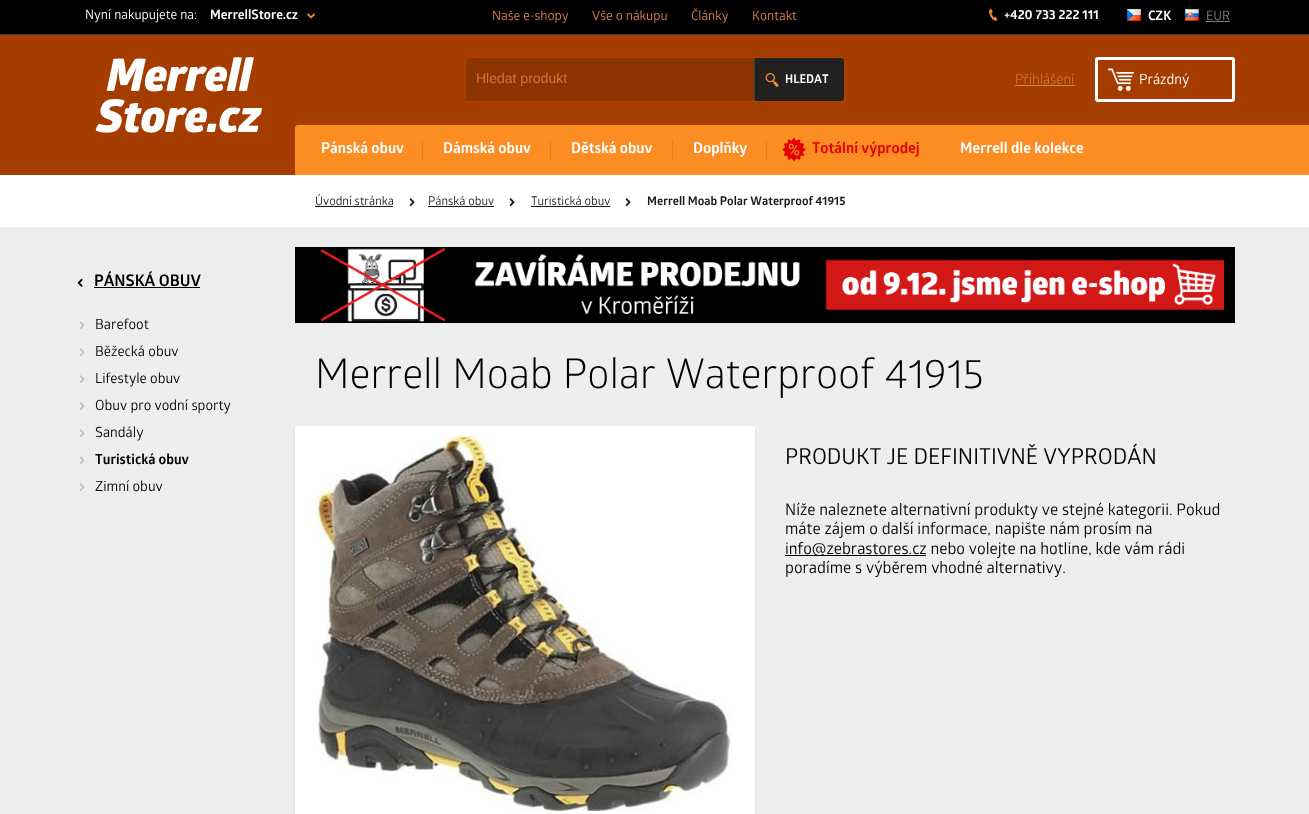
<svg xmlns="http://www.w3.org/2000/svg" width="1309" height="814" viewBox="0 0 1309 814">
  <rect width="100%" height="100%" fill="#fff"/>
  <path d="M0 0h1309v34H0z" fill="#000"/>
  <path d="M0 34h1309v1H0z" fill="#404040"/>
  <image x="307" y="13" width="8" height="6" href="img/1.png"/>
  <image x="989" y="8" width="9" height="13" href="img/2.png"/>
  <image x="1127" y="9" width="14" height="12" href="img/3.png"/>
  <image x="1185" y="9" width="14" height="12" href="img/4.png"/>
  <path d="M1206 21h24v1H1206z" fill="#7e7e7e"/>
  <path d="M0 35h1309v140H0z" fill="#a53d00"/>
  <rect x="465.5" y="57.5" width="379" height="44" rx="2.5" fill="#8c3400" stroke="#b44300"/>
  <path d="M754 58H841C842.5 58 844 59.5 844 61V98C844 99.5 842.5 101 841 101H754Z" fill="#222121"/>
  <image x="765" y="73" width="14" height="14" href="img/5.png"/>
  <path d="M754 58h1v43H754z" fill="#404040"/>
  <path d="M1015 85h60v1H1015z" fill="#d7814e"/>
  <rect x="1096.5" y="58.5" width="137" height="42" rx="1.5" fill="none" stroke="#fff" stroke-width="3"/>
  <image x="1108" y="68" width="26" height="23" href="img/6.png"/>
  <path d="M298 125H1225V175H295V128C295 126.5 296.5 125 298 125Z" fill="#fb8d23"/>
  <path d="M422 140h1v20H422z" fill="#e27f20"/>
  <path d="M550 140h1v20H550z" fill="#e27f20"/>
  <path d="M672 140h1v20H672z" fill="#e27f20"/>
  <path d="M766 140h1v20H766z" fill="#e27f20"/>
  <image x="782" y="137" width="24" height="25" href="img/7.png"/>
  <path d="M1225 125h84v50H1225z" fill="#fb8d23"/>
  <path d="M315 206h78v1H315z" fill="#1a1a1a"/>
  <image x="409" y="198" width="6" height="9" href="img/8.png"/>
  <path d="M428 206h66v1H428z" fill="#1a1a1a"/>
  <image x="509" y="198" width="6" height="9" href="img/8.png"/>
  <path d="M531 206h79v1H531z" fill="#1a1a1a"/>
  <image x="625" y="198" width="6" height="9" href="img/8.png"/>
  <path d="M0 227h1309v587H0z" fill="#eee"/>
  <image x="77" y="278" width="6" height="9" href="img/9.png"/>
  <path d="M94 287h106v1H94z" fill="#000"/>
  <image x="79" y="321" width="6" height="8" href="img/10.png"/>
  <image x="79" y="348" width="6" height="8" href="img/10.png"/>
  <image x="79" y="375" width="6" height="8" href="img/10.png"/>
  <image x="79" y="402" width="6" height="8" href="img/10.png"/>
  <image x="79" y="429" width="6" height="8" href="img/10.png"/>
  <image x="79" y="456" width="6" height="8" href="img/10.png"/>
  <image x="79" y="483" width="6" height="8" href="img/10.png"/>
  <image x="295" y="247" width="940" height="76" href="img/11.png"/>
  <rect x="295" y="428" width="460" height="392" rx="3" fill="#cdcdcd" filter="blur(1px)"/>
  <rect x="295" y="426" width="460" height="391" rx="3" fill="#fff"/>
  <image x="305" y="436" width="428" height="375" href="img/12.png"/>
  <path d="M785 555h141v1H785z" fill="#000"/>
  <text x="85" y="19" font-family="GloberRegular" font-size="13" fill="#fff">Nyní nakupujete na:</text>
  <g font-family="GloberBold" font-size="13" fill="#fff">
    <text x="210" y="19">MerrellStore.cz</text>
    <text x="1004" y="19">+420 733 222 111</text>
    <text x="1148" y="20">CZK</text>
  </g>
  <text x="1206" y="20" font-family="GloberRegular" font-size="13" fill="#7e7e7e">EUR</text>
  <g font-family="GloberRegular" font-size="13" fill="#d7814e">
    <text x="492" y="20">Naše e-shopy</text>
    <text x="592" y="20">Vše o nákupu</text>
    <text x="691" y="20">Články</text>
    <text x="752" y="20">Kontakt</text>
  </g>
  <g font-family="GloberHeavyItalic" font-size="45" fill="#fff">
    <text x="107" y="91">Merrell</text>
    <text x="97" y="132">Store.cz</text>
  </g>
  <text x="476" y="83" font-family="Liberation Sans" font-size="14" fill="#d27239">Hledat produkt</text>
  <text x="785" y="83" font-family="GloberBold" font-size="12" fill="#fff">HLEDAT</text>
  <text x="1015" y="84" font-family="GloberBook" font-size="14" fill="#d7814e">Příhlášení</text>
  <text x="1139" y="84" font-family="GloberRegular" font-size="14" fill="#fff">Prázdný</text>
  <g font-family="GloberBold" font-size="15" fill="#fff">
    <text x="321" y="153">Pánská obuv</text>
    <text x="443" y="153">Dámská obuv</text>
    <text x="571" y="153">Dětská obuv</text>
    <text x="693" y="153">Doplňky</text>
  </g>
  <text x="812" y="153" font-family="GloberBold" font-size="15" fill="#e50000">Totální výprodej</text>
  <text x="960" y="153" font-family="GloberBold" font-size="15" fill="#fff">Merrell dle kolekce</text>
  <g font-family="GloberRegular" font-size="12" fill="#1a1a1a">
    <text x="315" y="205">Úvodní stránka</text>
    <text x="428" y="205">Pánská obuv</text>
    <text x="531" y="205">Turistická obuv</text>
  </g>
  <text x="647" y="205" font-family="GloberBold" font-size="12" fill="#1a1a1a">Merrell Moab Polar Waterproof 41915</text>
  <text x="94" y="286" font-family="GloberBold" font-size="16" fill="#000">PÁNSKÁ OBUV</text>
  <g font-family="GloberRegular" font-size="14" fill="#000">
    <text x="95" y="329">Barefoot</text>
    <text x="95" y="356">Běžecká obuv</text>
    <text x="95" y="383">Lifestyle obuv</text>
    <text x="95" y="410">Obuv pro vodní sporty</text>
    <text x="95" y="437">Sandály</text>
  </g>
  <text x="95" y="464" font-family="GloberBold" font-size="14" fill="#000">Turistická obuv</text>
  <text x="95" y="491" font-family="GloberRegular" font-size="14" fill="#000">Zimní obuv</text>
  <text x="315" y="388" font-family="GloberBook" font-size="41" fill="#000">Merrell Moab Polar Waterproof 41915</text>
  <text x="785" y="464" font-family="GloberRegular" font-size="22" fill="#000">PRODUKT JE DEFINITIVNĚ VYPRODÁN</text>
  <g font-family="GloberRegular" font-size="16" fill="#000">
    <text x="785" y="515">Níže naleznete alternativní produkty ve stejné kategorii. Pokud</text>
    <text x="785" y="534">máte zájem o další informace, napište nám prosím na</text>
    <text x="785" y="554">info@zebrastores.cz nebo volejte na hotline, kde vám rádi</text>
    <text x="785" y="573">poradíme s výběrem vhodné alternativy.</text>
  </g>
</svg>
